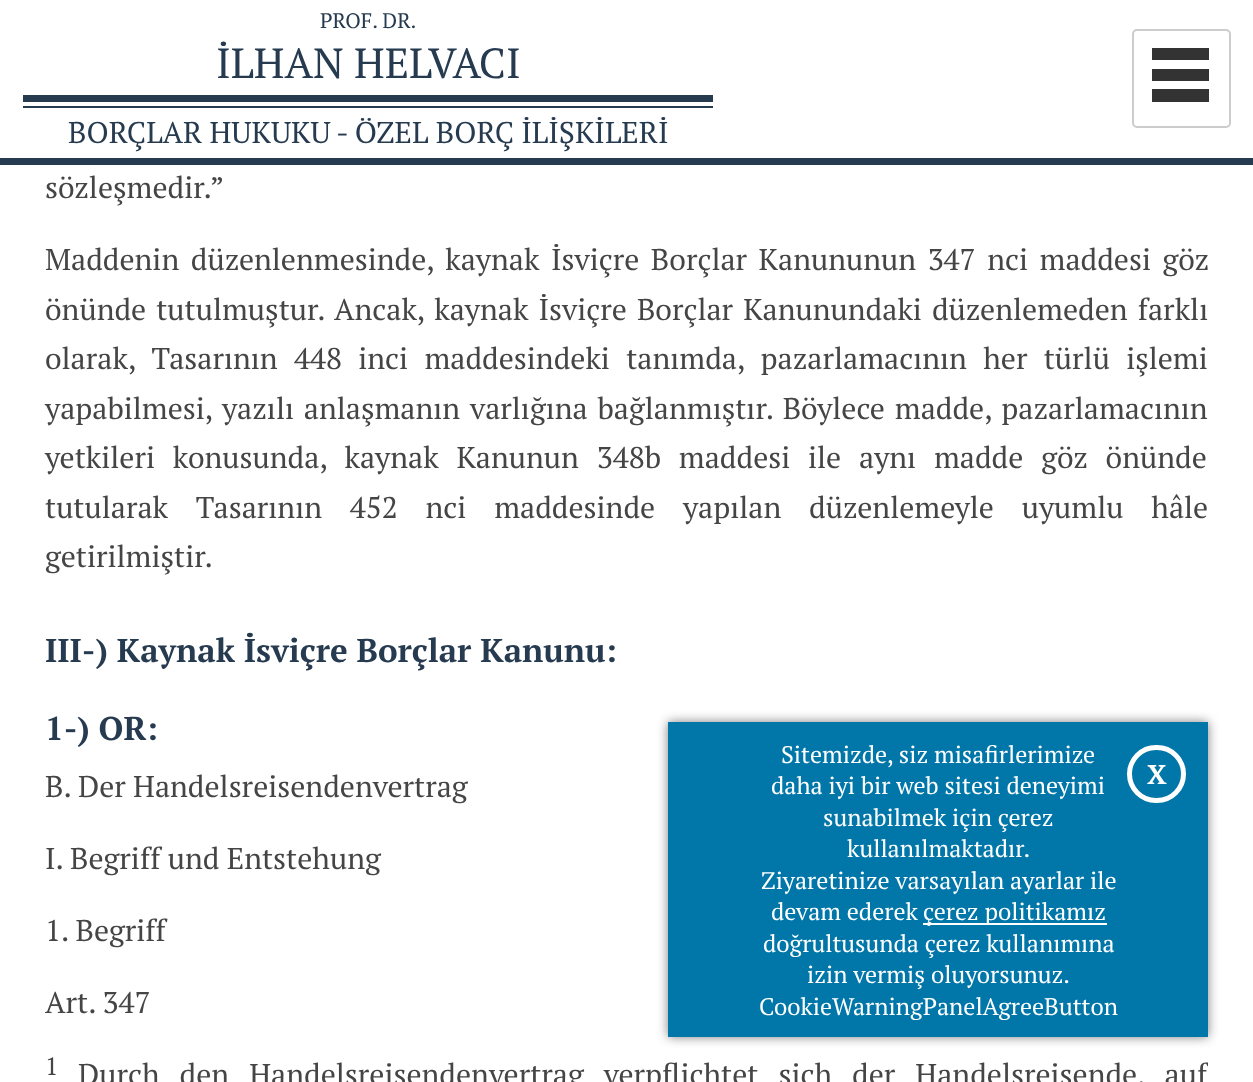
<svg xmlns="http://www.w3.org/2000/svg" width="1253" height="1082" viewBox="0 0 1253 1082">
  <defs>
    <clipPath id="clip1"><path d="M45 0h1163v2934H45z"/></clipPath>
  </defs>
  <rect width="100%" height="100%" fill="#fff"/>
  <path d="M23 95h690v7H23z" fill="#273b50"/>
  <path d="M23 106h690v2H23z" fill="#273b50"/>
  <rect x="1133" y="30" width="97" height="97" rx="4" fill="none" stroke="#ccc" stroke-width="2"/>
  <path d="M1209 48V60H1152V48ZM1152 69V81H1209V69ZM1209 89H1152V102H1209Z" fill="#333"/>
  <path d="M0 158h1253v7H0z" fill="#273b50"/>
  <path d="M668 722h540v315H668z" fill="#00000080" filter="blur(5.5px)"/>
  <path d="M668 722h540v315H668z" fill="#0076a9"/>
  <path d="M923 923h184v2H923z" fill="#fff"/>
  <rect x="1129.5" y="747.5" width="54" height="53" rx="26.5" fill="none" stroke="#fff" stroke-width="5"/>
  <text x="320" y="28" font-family="PT Serif" font-size="21" fill="#273b50">PROF. DR.</text>
  <text x="216" y="78" font-family="PT Serif" font-size="42" fill="#273b50">İLHAN HELVACI</text>
  <g font-family="PT Serif" font-size="30" fill="#273b50">
    <text x="68" y="143">BORÇLAR HUKUKU</text>
    <text x="336" y="143">- ÖZEL BORÇ İLİŞKİLERİ</text>
  </g>
  <g font-family="PT Serif" font-size="30" fill="#454545">
    <text x="45" y="198">sözleşmedir.”</text>
    <text x="45" y="270" word-spacing="4.25">Maddenin düzenlenmesinde, kaynak İsviçre Borçlar Kanununun 347 nci maddesi göz</text>
    <text x="45" y="320" word-spacing="2.75">önünde tutulmuştur. Ancak, kaynak İsviçre Borçlar Kanunundaki düzenlemeden farklı</text>
    <text x="45" y="369" word-spacing="9">olarak, Tasarının 448 inci maddesindeki tanımda, pazarlamacının her türlü işlemi</text>
    <text x="45" y="419" word-spacing="2.5">yapabilmesi, yazılı anlaşmanın varlığına bağlanmıştır. Böylece madde, pazarlamacının</text>
    <text x="45" y="468" word-spacing="10.5">yetkileri konusunda, kaynak Kanunun 348b maddesi ile aynı madde göz önünde</text>
    <text x="45" y="518" word-spacing="20.5">tutularak Tasarının 452 nci maddesinde yapılan düzenlemeyle uyumlu hâle</text>
    <text x="45" y="567">getirilmiştir.</text>
  </g>
  <g font-family="PT Serif" font-size="33" font-weight="bold" fill="#273b50">
    <text x="45" y="662">III-) Kaynak İsviçre Borçlar Kanunu:</text>
    <text x="45" y="740">1-) OR:</text>
  </g>
  <g font-family="PT Serif" font-size="30" fill="#454545">
    <text x="45" y="797">B. Der Handelsreisendenvertrag</text>
    <text x="45" y="869">I. Begriff und Entstehung</text>
    <text x="45" y="941">1. Begriff</text>
    <text x="45" y="1013">Art. 347</text>
  </g>
  <text x="45" y="1075" font-family="PT Serif" font-size="25" fill="#454545">1</text>
  <g clip-path="url(#clip1)">
    <text x="78" y="1085" word-spacing="12.75" font-family="PT Serif" font-size="30" fill="#454545">Durch den Handelsreisendenvertrag verpflichtet sich der Handelsreisende, auf</text>
  </g>
  <g font-family="PT Serif" font-size="24" fill="#fff">
    <text x="781" y="763">Sitemizde, siz misafirlerimize</text>
    <text x="771" y="794">daha iyi bir web sitesi deneyimi</text>
    <text x="823" y="826">sunabilmek için çerez</text>
    <text x="847" y="857">kullanılmaktadır.</text>
    <text x="761" y="889">Ziyaretinize varsayılan ayarlar ile</text>
    <text x="771" y="920">devam ederek</text>
    <text x="923" y="920">çerez politikamız</text>
    <text x="763" y="952">doğrultusunda çerez kullanımına</text>
    <text x="807" y="983">izin vermiş oluyorsunuz.</text>
    <text x="759" y="1015">CookieWarningPanelAgreeButton</text>
  </g>
  <text x="1147" y="784" font-family="PT Serif" font-size="27" font-weight="bold" fill="#fff">X</text>
</svg>
